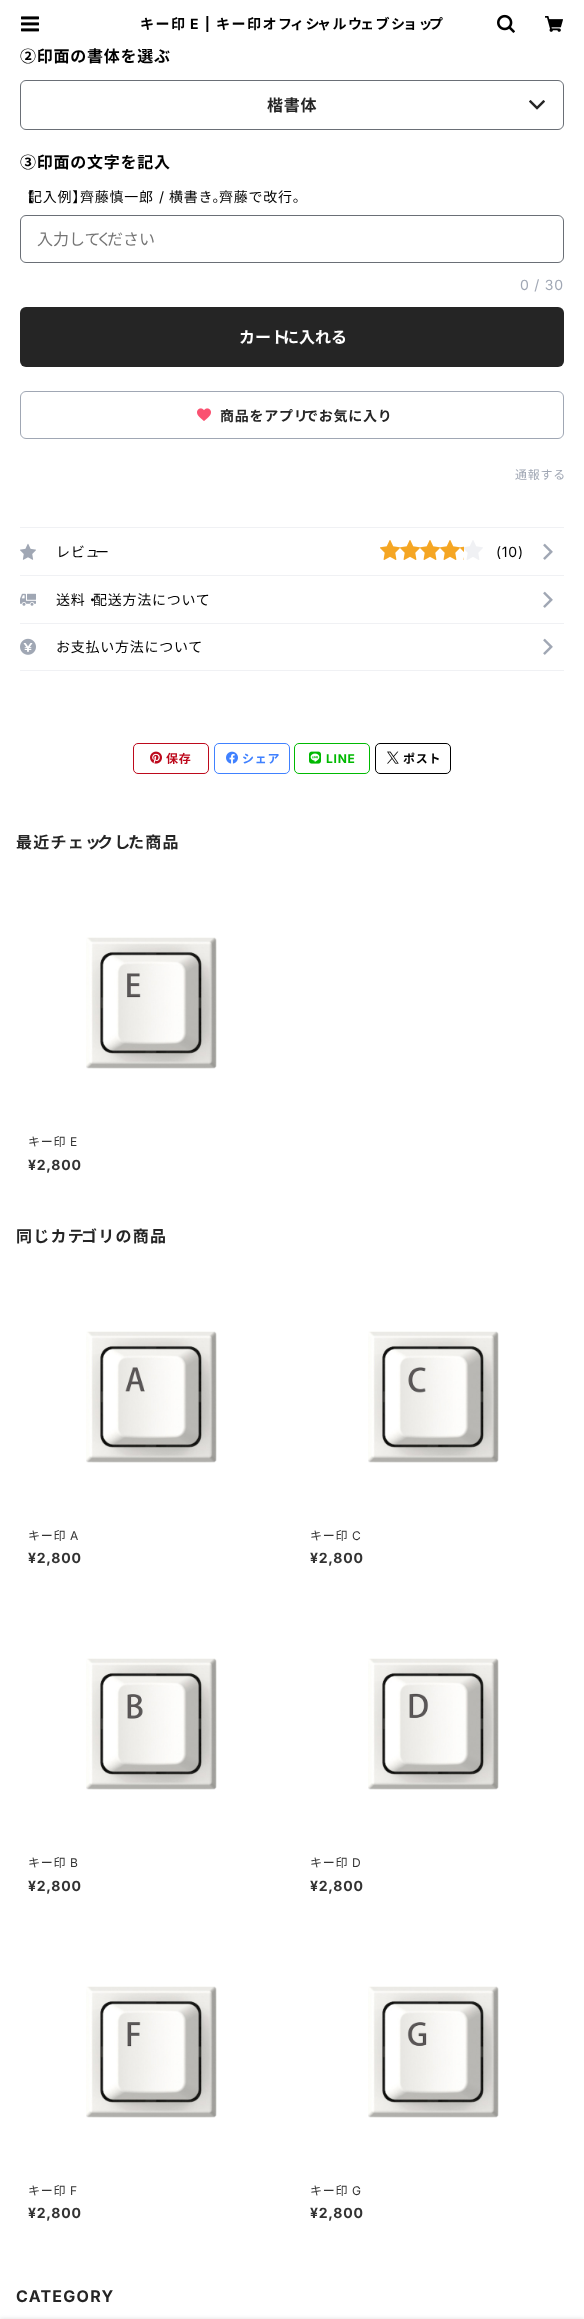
<svg xmlns="http://www.w3.org/2000/svg" width="584" height="2319" viewBox="0 0 584 2319">
  <defs>
    <clipPath id="clip1"><path d="M140 16h304v16H140z"/></clipPath>
  </defs>
  <rect width="100%" height="100%" fill="#fff"/>
  <image x="21" y="16" width="18" height="16" href="img/1.png"/>
  <image x="497" y="14" width="18" height="19" href="img/2.png"/>
  <image x="545" y="16" width="18" height="16" href="img/3.png"/>
  <rect x="20.5" y="80.5" width="543" height="49" rx="5.5" fill="none" stroke="#6a6f76"/>
  <image x="529" y="100" width="16" height="10" href="img/4.png"/>
  <rect x="20.5" y="215.5" width="543" height="47" rx="5.5" fill="none" stroke="#6a6f76"/>
  <rect x="20" y="307" width="544" height="60" rx="6" fill="#252525"/>
  <rect x="20.5" y="391.5" width="543" height="47" rx="5.5" fill="none" stroke="#a0a7b4"/>
  <image x="197" y="408" width="14" height="13" href="img/5.png"/>
  <path d="M20 527h544v1H20z" fill="#f0f1f4"/>
  <image x="20" y="543" width="16" height="17" href="img/6.png"/>
  <image x="380" y="540" width="20" height="20" href="img/7.png"/>
  <image x="400" y="540" width="20" height="20" href="img/7.png"/>
  <image x="420" y="540" width="20" height="20" href="img/7.png"/>
  <image x="440" y="540" width="20" height="20" href="img/7.png"/>
  <image x="460" y="546" width="4" height="14" href="img/8.png"/>
  <image x="464" y="540" width="19" height="20" href="img/9.png"/>
  <image x="543" y="543" width="10" height="17" href="img/10.png"/>
  <path d="M20 575h544v1H20z" fill="#f0f1f4"/>
  <image x="20" y="593" width="16" height="13" href="img/11.png"/>
  <image x="543" y="591" width="10" height="17" href="img/10.png"/>
  <path d="M20 623h544v1H20z" fill="#f0f1f4"/>
  <path d="M20 670h544v1H20z" fill="#f0f1f4"/>
  <image x="20" y="638" width="16" height="17" href="img/12.png"/>
  <image x="543" y="638" width="10" height="17" href="img/10.png"/>
  <path d="M0 2319h584v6H0z" fill="#ddd" filter="blur(2px)"/>
  <rect x="133.5" y="743.5" width="75" height="30" rx="4.5" fill="none" stroke="#bd091c"/>
  <image x="150" y="751" width="12" height="13" href="img/13.png"/>
  <rect x="214.5" y="743.5" width="75" height="30" rx="4.5" fill="none" stroke="#4081ff"/>
  <image x="226" y="751" width="12" height="13" href="img/14.png"/>
  <rect x="294.5" y="743.5" width="75" height="30" rx="4.5" fill="none" stroke="#00b901"/>
  <image x="309" y="751" width="12" height="13" href="img/15.png"/>
  <rect x="375.5" y="743.5" width="75" height="30" rx="4.5" fill="none" stroke="#000"/>
  <image x="387" y="751" width="12" height="13" href="img/16.png"/>
  <image x="86" y="937" width="131" height="132" href="img/17.png"/>
  <image x="86" y="1331" width="131" height="132" href="img/18.png"/>
  <image x="368" y="1331" width="131" height="132" href="img/19.png"/>
  <image x="86" y="1658" width="131" height="132" href="img/20.png"/>
  <image x="368" y="1658" width="131" height="132" href="img/21.png"/>
  <image x="86" y="1986" width="131" height="132" href="img/22.png"/>
  <image x="368" y="1986" width="131" height="132" href="img/23.png"/>
  <text x="140" y="29" font-family="Noto Sans JP" font-size="14" font-weight="bold" letter-spacing="1.5" fill="#000">キー印</text>
  <g clip-path="url(#clip1)">
    <text x="190" y="29" font-family="Inter" font-size="14" font-weight="bold" letter-spacing="1.5" fill="#000">E |</text>
  </g>
  <text x="216" y="29" font-family="Noto Sans JP" font-size="14" font-weight="bold" letter-spacing="1.5" fill="#000">キー印オフ</text>
  <text x="290" y="29" font-family="Noto Sans JP" font-size="14" font-weight="bold" letter-spacing="1.5" fill="#000">ィシ</text>
  <text x="317" y="29" font-family="Noto Sans JP" font-size="14" font-weight="bold" letter-spacing="1.5" fill="#000">ャルウ</text>
  <text x="360" y="29" font-family="Noto Sans JP" font-size="14" font-weight="bold" letter-spacing="1.5" fill="#000">ェブシ</text>
  <text x="403" y="29" font-family="Noto Sans JP" font-size="14" font-weight="bold" letter-spacing="1.5" fill="#000">ョッ</text>
  <text x="429" y="29" font-family="Noto Sans JP" font-size="14" font-weight="bold" letter-spacing="1.5" fill="#000">プ</text>
  <text x="20" y="62" font-family="Noto Sans JP" font-size="16" font-weight="bold" letter-spacing="0.75" fill="#000">②印面の書体を選ぶ</text>
  <text x="267" y="111" font-family="Noto Sans JP" font-size="16" font-weight="bold" letter-spacing="0.75" fill="#252525">楷書体</text>
  <text x="20" y="168" font-family="Noto Sans JP" font-size="16" font-weight="bold" letter-spacing="0.75" fill="#000">③印面の文字を記入</text>
  <text x="20" y="202" font-family="Noto Sans JP" font-size="14" letter-spacing="0.75" fill="#000">【</text>
  <text x="28" y="202" font-family="Noto Sans JP" font-size="14" letter-spacing="0.75" fill="#000">記入例】</text>
  <text x="80" y="202" font-family="Noto Sans JP" font-size="14" letter-spacing="0.75" fill="#000">齊藤慎一郎</text>
  <text x="159" y="202" font-family="Inter" font-size="14" letter-spacing="0.75" fill="#000">/</text>
  <text x="169" y="202" font-family="Noto Sans JP" font-size="14" letter-spacing="0.75" fill="#000">横書き。</text>
  <text x="219" y="202" font-family="Noto Sans JP" font-size="14" letter-spacing="0.75" fill="#000">齊藤で改行。</text>
  <text x="37" y="245" font-family="Noto Sans JP" font-size="16" fill="#757575">入力して</text>
  <text x="96" y="245" font-family="Noto Sans JP" font-size="16" fill="#757575">く</text>
  <text x="107" y="245" font-family="Noto Sans JP" font-size="16" fill="#757575">ださい</text>
  <text x="520" y="290" font-family="Inter" font-size="14" letter-spacing="0.75" fill="#a0a7b4">0 / 30</text>
  <text x="239" y="343" font-family="Noto Sans JP" font-size="16" font-weight="bold" fill="#fff">カート</text>
  <text x="283" y="343" font-family="Noto Sans JP" font-size="16" font-weight="bold" fill="#fff">に入れる</text>
  <text x="220" y="421" font-family="Noto Sans JP" font-size="14" font-weight="bold" letter-spacing="0.75" fill="#252525">商品をアプリ</text>
  <text x="304" y="421" font-family="Noto Sans JP" font-size="14" font-weight="bold" letter-spacing="0.75" fill="#252525">でお気に入り</text>
  <text x="515" y="479" font-family="Noto Sans JP" font-size="12" letter-spacing="0.75" fill="#a0a7b4">通報する</text>
  <text x="56" y="557" font-family="Noto Sans JP" font-size="14" letter-spacing="0.75" fill="#000">レビュ</text>
  <text x="95" y="557" font-family="Noto Sans JP" font-size="14" letter-spacing="0.75" fill="#000">ー</text>
  <text x="496" y="557" font-family="Inter" font-size="14" letter-spacing="0.75" fill="#000">(10)</text>
  <g font-family="Noto Sans JP" font-size="14" letter-spacing="0.75" fill="#000">
    <text x="56" y="605">送料・</text>
    <text x="93" y="605">配送方法について</text>
    <text x="56" y="652">お支払い方法について</text>
  </g>
  <text x="166" y="763" font-family="Noto Sans JP" font-size="12" font-weight="bold" letter-spacing="0.75" fill="#bd091c">保存</text>
  <text x="242" y="763" font-family="Noto Sans JP" font-size="12" font-weight="bold" letter-spacing="0.75" fill="#4081ff">シェア</text>
  <text x="326" y="763" font-family="Inter" font-size="12" font-weight="bold" letter-spacing="0.75" fill="#00b901">LINE</text>
  <text x="403" y="763" font-family="Noto Sans JP" font-size="12" font-weight="bold" letter-spacing="0.75" fill="#000">ポスト</text>
  <text x="16" y="848" font-family="Noto Sans JP" font-size="16" font-weight="bold" letter-spacing="1.25" fill="#252525">最近チェッ</text>
  <text x="97" y="848" font-family="Noto Sans JP" font-size="16" font-weight="bold" letter-spacing="1.25" fill="#252525">クし</text>
  <text x="128" y="848" font-family="Noto Sans JP" font-size="16" font-weight="bold" letter-spacing="1.25" fill="#252525">た商品</text>
  <text x="28" y="1146" font-family="Noto Sans JP" font-size="12" letter-spacing="0.75" fill="#333">キー印</text>
  <text x="70" y="1146" font-family="Inter" font-size="12" letter-spacing="0.75" fill="#333">E</text>
  <text x="28" y="1170" font-family="Inter" font-size="14" font-weight="bold" letter-spacing="0.75" fill="#333">¥2,800</text>
  <text x="16" y="1242" font-family="Noto Sans JP" font-size="16" font-weight="bold" letter-spacing="1.25" fill="#252525">同じカテ</text>
  <text x="81" y="1242" font-family="Noto Sans JP" font-size="16" font-weight="bold" letter-spacing="1.25" fill="#252525">ゴリの商品</text>
  <text x="28" y="1540" font-family="Noto Sans JP" font-size="12" letter-spacing="0.75" fill="#333">キー印</text>
  <text x="70" y="1540" font-family="Inter" font-size="12" letter-spacing="0.75" fill="#333">A</text>
  <text x="28" y="1563" font-family="Inter" font-size="14" font-weight="bold" letter-spacing="0.75" fill="#333">¥2,800</text>
  <text x="310" y="1540" font-family="Noto Sans JP" font-size="12" letter-spacing="0.75" fill="#333">キー印</text>
  <text x="352" y="1540" font-family="Inter" font-size="12" letter-spacing="0.75" fill="#333">C</text>
  <text x="310" y="1563" font-family="Inter" font-size="14" font-weight="bold" letter-spacing="0.75" fill="#333">¥2,800</text>
  <text x="28" y="1867" font-family="Noto Sans JP" font-size="12" letter-spacing="0.75" fill="#333">キー印</text>
  <text x="70" y="1867" font-family="Inter" font-size="12" letter-spacing="0.75" fill="#333">B</text>
  <text x="28" y="1891" font-family="Inter" font-size="14" font-weight="bold" letter-spacing="0.75" fill="#333">¥2,800</text>
  <text x="310" y="1867" font-family="Noto Sans JP" font-size="12" letter-spacing="0.75" fill="#333">キー印</text>
  <text x="352" y="1867" font-family="Inter" font-size="12" letter-spacing="0.75" fill="#333">D</text>
  <text x="310" y="1891" font-family="Inter" font-size="14" font-weight="bold" letter-spacing="0.75" fill="#333">¥2,800</text>
  <text x="28" y="2195" font-family="Noto Sans JP" font-size="12" letter-spacing="0.75" fill="#333">キー印</text>
  <text x="70" y="2195" font-family="Inter" font-size="12" letter-spacing="0.75" fill="#333">F</text>
  <text x="28" y="2218" font-family="Inter" font-size="14" font-weight="bold" letter-spacing="0.75" fill="#333">¥2,800</text>
  <text x="310" y="2195" font-family="Noto Sans JP" font-size="12" letter-spacing="0.75" fill="#333">キー印</text>
  <text x="352" y="2195" font-family="Inter" font-size="12" letter-spacing="0.75" fill="#333">G</text>
  <text x="310" y="2218" font-family="Inter" font-size="14" font-weight="bold" letter-spacing="0.75" fill="#333">¥2,800</text>
  <text x="16" y="2302" font-family="Inter" font-size="16" font-weight="bold" letter-spacing="1.25" fill="#252525">CATEGORY</text>
</svg>
